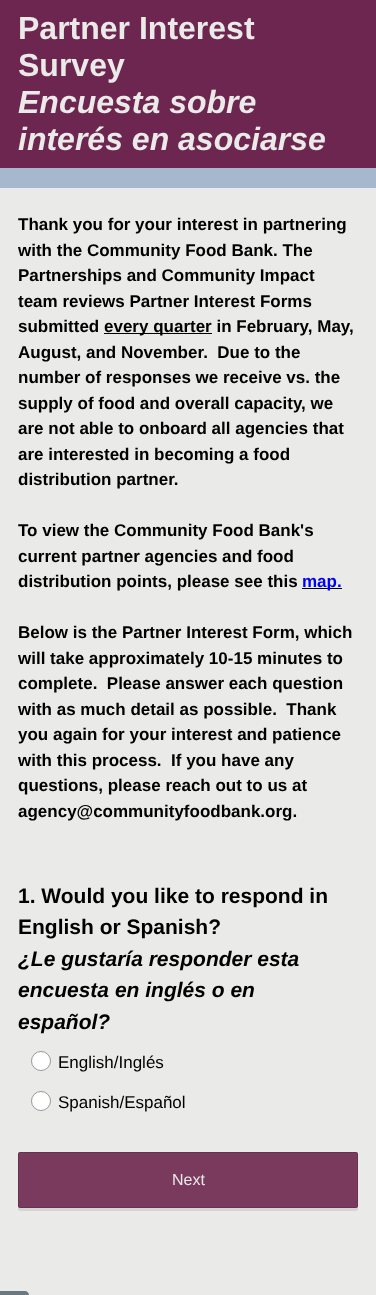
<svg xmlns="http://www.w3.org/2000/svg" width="376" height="1295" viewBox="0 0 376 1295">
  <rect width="100%" height="100%" fill="#eaeae8"/>
  <path d="M0 0h376v168H0z" fill="#6c264f"/>
  <path d="M0 168h376v20H0z" fill="#a6b8ce"/>
  <path d="M104 333h108v1H104z" fill="#000"/>
  <path d="M302 588h40v1H302z" fill="#000"/>
  <circle cx="41" cy="1061" r="9.5" fill="#fff" stroke="#999"/>
  <circle cx="41" cy="1101" r="9.5" fill="#fff" stroke="#999"/>
  <path d="M18 1206V1209C18 1210 19 1211 20 1211H356C357 1211 358 1210 358 1209V1206C358 1207 357 1208 356 1208H20C19 1208 18 1207 18 1206Z" fill="#d5d5d3"/>
  <rect x="18" y="1152" width="340" height="56" rx="2" fill="#793a5e"/>
  <rect x="18.5" y="1152.5" width="339" height="55" rx="1.5" fill="none" stroke="#17171733"/>
  <path d="M0 1291H25C27 1291 29 1293 29 1295C29 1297 27 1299 25 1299H0Z" fill="#6b787f"/>
  <g font-family="Liberation Sans" font-size="32" font-weight="bold" fill="#eaeae8">
    <text x="18" y="39">Partner Interest</text>
    <text x="18" y="76">Survey</text>
  </g>
  <g font-family="Liberation Sans" font-size="32" font-weight="bold" font-style="italic" fill="#eaeae8">
    <text x="18" y="113">Encuesta sobre</text>
    <text x="18" y="150">interés en asociarse</text>
  </g>
  <g font-family="Liberation Sans" font-size="17" font-weight="bold" fill="#000">
    <text x="18" y="230">Thank you for your interest in partnering</text>
    <text x="18" y="256">with the Community Food Bank. The</text>
    <text x="18" y="281">Partnerships and Community Impact</text>
    <text x="18" y="307">team reviews Partner Interest Forms</text>
    <text x="18" y="332">submitted</text>
    <text x="104" y="332">every quarter in February, May,</text>
    <text x="18" y="358" xml:space="preserve">August, and November.  Due to the</text>
    <text x="18" y="383">number of responses we receive vs. the</text>
    <text x="18" y="409">supply of food and overall capacity, we</text>
    <text x="18" y="434">are not able to onboard all agencies that</text>
    <text x="18" y="460">are interested in becoming a food</text>
    <text x="18" y="485">distribution partner.</text>
    <text x="18" y="536">To view the Community Food Bank's</text>
    <text x="18" y="562">current partner agencies and food</text>
    <text x="18" y="587">distribution points, please see this</text>
  </g>
  <text x="302" y="587" font-family="Liberation Sans" font-size="17" font-weight="bold" fill="#00f">map.</text>
  <g font-family="Liberation Sans" font-size="17" font-weight="bold" fill="#000">
    <text x="18" y="638">Below is the Partner Interest Form, which</text>
    <text x="18" y="664">will take approximately 10-15 minutes to</text>
    <text x="18" y="689" xml:space="preserve">complete.  Please answer each question</text>
    <text x="18" y="715" xml:space="preserve">with as much detail as possible.  Thank</text>
    <text x="18" y="740">you again for your interest and patience</text>
    <text x="18" y="766" xml:space="preserve">with this process.  If you have any</text>
    <text x="18" y="791">questions, please reach out to us at</text>
    <text x="18" y="817">agency@communityfoodbank.org.</text>
  </g>
  <g font-family="Liberation Sans" font-size="21" font-weight="bold" fill="#000">
    <text x="18" y="903">1. Would you like to respond in</text>
    <text x="18" y="934">English or Spanish?</text>
  </g>
  <g font-family="Liberation Sans" font-size="21" font-weight="bold" font-style="italic" fill="#000">
    <text x="18" y="966">¿Le gustaría responder esta</text>
    <text x="18" y="997">encuesta en inglés o en</text>
    <text x="18" y="1029">español?</text>
  </g>
  <g font-family="Liberation Sans" font-size="17" fill="#000">
    <text x="58" y="1068">English/Inglés</text>
    <text x="58" y="1108">Spanish/Español</text>
  </g>
  <text x="172" y="1185" font-family="Liberation Sans" font-size="16" fill="#eaeae8">Next</text>
</svg>
